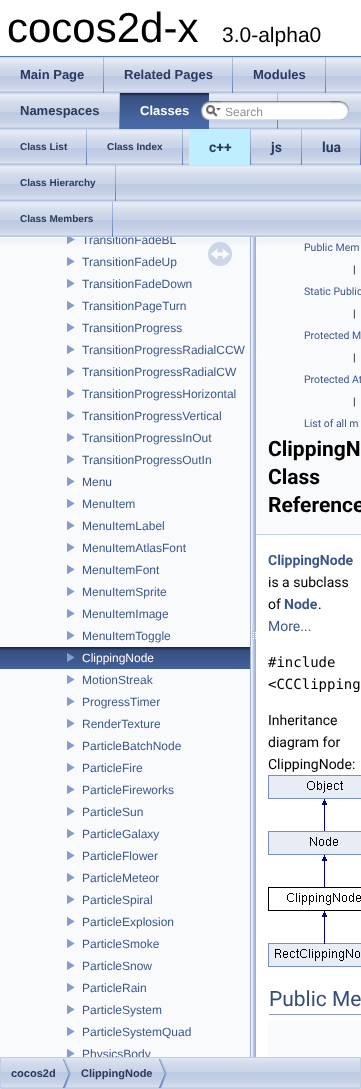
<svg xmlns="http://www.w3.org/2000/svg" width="361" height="1089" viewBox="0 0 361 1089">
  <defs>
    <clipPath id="clip1"><path d="M0 237h250v820H0z"/></clipPath>
  </defs>
  <rect width="100%" height="100%" fill="#fff"/>
  <path d="M0 56h361v1H0z" fill="#5373b4"/>
  <image x="0" y="57" width="361" height="72" href="img/1.png"/>
  <image x="103" y="57" width="1" height="36" href="img/2.png"/>
  <image x="232" y="57" width="1" height="36" href="img/2.png"/>
  <image x="325" y="57" width="1" height="36" href="img/2.png"/>
  <image x="119" y="93" width="1" height="36" href="img/2.png"/>
  <image x="120" y="93" width="89" height="36" href="img/3.png"/>
  <image x="201" y="101" width="20" height="19" href="img/4.png"/>
  <image x="206" y="105" width="15" height="12" href="img/5.png"/>
  <image x="277" y="93" width="1" height="36" href="img/2.png"/>
  <image x="221" y="101" width="110" height="19" href="img/6.png"/>
  <image x="331" y="101" width="18" height="19" href="img/7.png"/>
  <image x="0" y="129" width="361" height="108" href="img/8.png"/>
  <image x="86" y="129" width="1" height="36" href="img/2.png"/>
  <image x="182" y="129" width="1" height="36" href="img/2.png"/>
  <image x="115" y="165" width="1" height="36" href="img/2.png"/>
  <image x="112" y="201" width="1" height="36" href="img/2.png"/>
  <path d="M189 129h61v36H189z" fill="#bfefff"/>
  <image x="250" y="129" width="1" height="36" href="img/2.png"/>
  <image x="301" y="129" width="1" height="36" href="img/2.png"/>
  <image x="360" y="129" width="1" height="36" href="img/2.png"/>
  <path d="M0 245h250v812H0z" fill="#f9fafc"/>
  <image x="0" y="237" width="250" height="8" href="img/9.png"/>
  <image x="67" y="237" width="8" height="7" href="img/10.png"/>
  <image x="67" y="257" width="8" height="9" href="img/11.png"/>
  <image x="67" y="279" width="8" height="9" href="img/11.png"/>
  <image x="67" y="301" width="8" height="9" href="img/11.png"/>
  <image x="67" y="323" width="8" height="9" href="img/11.png"/>
  <image x="67" y="345" width="8" height="9" href="img/11.png"/>
  <image x="67" y="367" width="8" height="9" href="img/11.png"/>
  <image x="67" y="389" width="8" height="9" href="img/11.png"/>
  <image x="67" y="411" width="8" height="9" href="img/11.png"/>
  <image x="67" y="433" width="8" height="9" href="img/11.png"/>
  <image x="67" y="455" width="8" height="9" href="img/11.png"/>
  <image x="67" y="477" width="8" height="9" href="img/11.png"/>
  <image x="67" y="499" width="8" height="9" href="img/11.png"/>
  <image x="67" y="521" width="8" height="9" href="img/11.png"/>
  <image x="67" y="543" width="8" height="9" href="img/11.png"/>
  <image x="67" y="565" width="8" height="9" href="img/11.png"/>
  <image x="67" y="587" width="8" height="9" href="img/11.png"/>
  <image x="67" y="609" width="8" height="9" href="img/11.png"/>
  <image x="67" y="631" width="8" height="9" href="img/11.png"/>
  <image x="0" y="647" width="250" height="22" href="img/12.png"/>
  <image x="67" y="653" width="8" height="9" href="img/13.png"/>
  <image x="67" y="675" width="8" height="9" href="img/11.png"/>
  <image x="67" y="697" width="8" height="9" href="img/11.png"/>
  <image x="67" y="719" width="8" height="9" href="img/11.png"/>
  <image x="67" y="741" width="8" height="9" href="img/11.png"/>
  <image x="67" y="763" width="8" height="9" href="img/11.png"/>
  <image x="67" y="785" width="8" height="9" href="img/11.png"/>
  <image x="67" y="807" width="8" height="9" href="img/11.png"/>
  <image x="67" y="829" width="8" height="9" href="img/11.png"/>
  <image x="67" y="851" width="8" height="9" href="img/11.png"/>
  <image x="67" y="873" width="8" height="9" href="img/11.png"/>
  <image x="67" y="895" width="8" height="9" href="img/11.png"/>
  <image x="67" y="917" width="8" height="9" href="img/11.png"/>
  <image x="67" y="939" width="8" height="9" href="img/11.png"/>
  <image x="67" y="961" width="8" height="9" href="img/11.png"/>
  <image x="67" y="983" width="8" height="9" href="img/11.png"/>
  <image x="67" y="1005" width="8" height="9" href="img/11.png"/>
  <image x="67" y="1027" width="8" height="9" href="img/11.png"/>
  <image x="67" y="1049" width="8" height="8" href="img/14.png"/>
  <image x="208" y="242" width="24" height="24" href="img/15.png"/>
  <image x="250" y="237" width="6" height="820" href="img/16.png"/>
  <path d="M256 245h105v289H256z" fill="#f9fafc"/>
  <image x="256" y="237" width="105" height="8" href="img/17.png"/>
  <path d="M256 534h105v1H256z" fill="#c4cfe5"/>
  <image x="268" y="775" width="93" height="192" href="img/18.png"/>
  <path d="M269 1014h92v1H269z" fill="#879ecb"/>
  <path d="M268 1020h93v37H268z" fill="#f9fafc"/>
  <image x="1" y="1058" width="359" height="30" href="img/19.png"/>
  <path d="M0.5 1057.5h360v31H0.5z" fill="none" stroke="#c2cde4"/>
  <image x="63" y="1059" width="8" height="29" href="img/20.png"/>
  <image x="159" y="1059" width="8" height="29" href="img/20.png"/>
  <text x="7" y="42" font-family="Liberation Sans" font-size="42" fill="#000">cocos2d-x</text>
  <text x="222" y="42" font-family="Liberation Sans" font-size="21" fill="#000">3.0-alpha0</text>
  <g font-family="Liberation Sans" font-size="13" font-weight="bold" fill="#283a5d">
    <text x="20" y="79">Main Page</text>
    <text x="124" y="79">Related Pages</text>
    <text x="253" y="79">Modules</text>
    <text x="20" y="115">Namespaces</text>
  </g>
  <text x="140" y="115" font-family="Liberation Sans" font-size="13" font-weight="bold" fill="#fff">Classes</text>
  <text x="225" y="116" font-family="Liberation Sans" font-size="12" fill="#909090">Search</text>
  <g font-family="Liberation Sans" font-size="10" font-weight="bold" fill="#283a5d">
    <text x="20" y="150">Class List</text>
    <text x="107" y="150">Class Index</text>
    <text x="20" y="186">Class Hierarchy</text>
    <text x="20" y="222">Class Members</text>
  </g>
  <g font-family="Roboto" font-size="14" font-weight="bold" fill="#283a5d">
    <text x="209" y="152">c++</text>
    <text x="271" y="152">js</text>
    <text x="322" y="152">lua</text>
  </g>
  <g clip-path="url(#clip1)">
    <text x="82" y="244" font-family="Liberation Sans" font-size="12" fill="#3d578c">TransitionFadeBL</text>
  </g>
  <g font-family="Liberation Sans" font-size="12" fill="#3d578c">
    <text x="82" y="266">TransitionFadeUp</text>
    <text x="82" y="288">TransitionFadeDown</text>
    <text x="82" y="310">TransitionPageTurn</text>
    <text x="82" y="332">TransitionProgress</text>
    <text x="82" y="354">TransitionProgressRadialCCW</text>
    <text x="82" y="376">TransitionProgressRadialCW</text>
    <text x="82" y="398">TransitionProgressHorizontal</text>
    <text x="82" y="420">TransitionProgressVertical</text>
    <text x="82" y="442">TransitionProgressInOut</text>
    <text x="82" y="464">TransitionProgressOutIn</text>
    <text x="82" y="486">Menu</text>
    <text x="82" y="508">MenuItem</text>
    <text x="82" y="530">MenuItemLabel</text>
    <text x="82" y="552">MenuItemAtlasFont</text>
    <text x="82" y="574">MenuItemFont</text>
    <text x="82" y="596">MenuItemSprite</text>
    <text x="82" y="618">MenuItemImage</text>
    <text x="82" y="640">MenuItemToggle</text>
  </g>
  <text x="82" y="662" font-family="Liberation Sans" font-size="12" fill="#fff">ClippingNode</text>
  <g font-family="Liberation Sans" font-size="12" fill="#3d578c">
    <text x="82" y="684">MotionStreak</text>
    <text x="82" y="706">ProgressTimer</text>
    <text x="82" y="728">RenderTexture</text>
    <text x="82" y="750">ParticleBatchNode</text>
    <text x="82" y="772">ParticleFire</text>
    <text x="82" y="794">ParticleFireworks</text>
    <text x="82" y="816">ParticleSun</text>
    <text x="82" y="838">ParticleGalaxy</text>
    <text x="82" y="860">ParticleFlower</text>
    <text x="82" y="882">ParticleMeteor</text>
    <text x="82" y="904">ParticleSpiral</text>
    <text x="82" y="926">ParticleExplosion</text>
    <text x="82" y="948">ParticleSmoke</text>
    <text x="82" y="970">ParticleSnow</text>
    <text x="82" y="992">ParticleRain</text>
    <text x="82" y="1014">ParticleSystem</text>
    <text x="82" y="1036">ParticleSystemQuad</text>
  </g>
  <g clip-path="url(#clip1)">
    <text x="82" y="1058" font-family="Liberation Sans" font-size="12" fill="#3d578c">PhysicsBody</text>
  </g>
  <text x="304" y="251" font-family="Roboto" font-size="10.5" fill="#3d578c">Public Mem</text>
  <text x="353" y="273" font-family="Roboto" font-size="10.5" fill="#000">|</text>
  <text x="304" y="295" font-family="Roboto" font-size="10.5" fill="#3d578c">Static Public</text>
  <text x="353" y="317" font-family="Roboto" font-size="10.5" fill="#000">|</text>
  <text x="304" y="339" font-family="Roboto" font-size="10.5" fill="#3d578c">Protected M</text>
  <text x="353" y="361" font-family="Roboto" font-size="10.5" fill="#000">|</text>
  <text x="304" y="383" font-family="Roboto" font-size="10.5" fill="#3d578c">Protected At</text>
  <text x="353" y="405" font-family="Roboto" font-size="10.5" fill="#000">|</text>
  <text x="304" y="427" font-family="Roboto" font-size="10.5" fill="#3d578c">List of all m</text>
  <g font-family="Roboto" font-size="21" font-weight="bold" fill="#000">
    <text x="268" y="456">ClippingN</text>
    <text x="268" y="484">Class</text>
    <text x="268" y="512">Reference</text>
  </g>
  <text x="268" y="565" font-family="Roboto" font-size="14" font-weight="bold" fill="#3d578c">ClippingNode</text>
  <g font-family="Roboto" font-size="14" fill="#000">
    <text x="268" y="587">is a subclass</text>
    <text x="268" y="609">of</text>
  </g>
  <text x="284" y="609" font-family="Roboto" font-size="14" font-weight="bold" fill="#3d578c">Node</text>
  <text x="318" y="609" font-family="Roboto" font-size="14" fill="#000">.</text>
  <text x="268" y="631" font-family="Roboto" font-size="14" fill="#3d578c">More...</text>
  <g font-family="DejaVu Sans Mono" font-size="14" fill="#000">
    <text x="268" y="667">#include</text>
    <text x="268" y="689">&lt;CCClipping</text>
  </g>
  <g font-family="Roboto" font-size="14" fill="#000">
    <text x="268" y="725">Inheritance</text>
    <text x="268" y="747">diagram for</text>
    <text x="268" y="769">ClippingNode:</text>
  </g>
  <text x="269" y="1006" font-family="Roboto" font-size="21" fill="#354c7b">Public Me</text>
  <g font-family="Liberation Sans" font-size="11" font-weight="bold" fill="#283a5d">
    <text x="11" y="1077">cocos2d</text>
    <text x="81" y="1077">ClippingNode</text>
  </g>
</svg>
